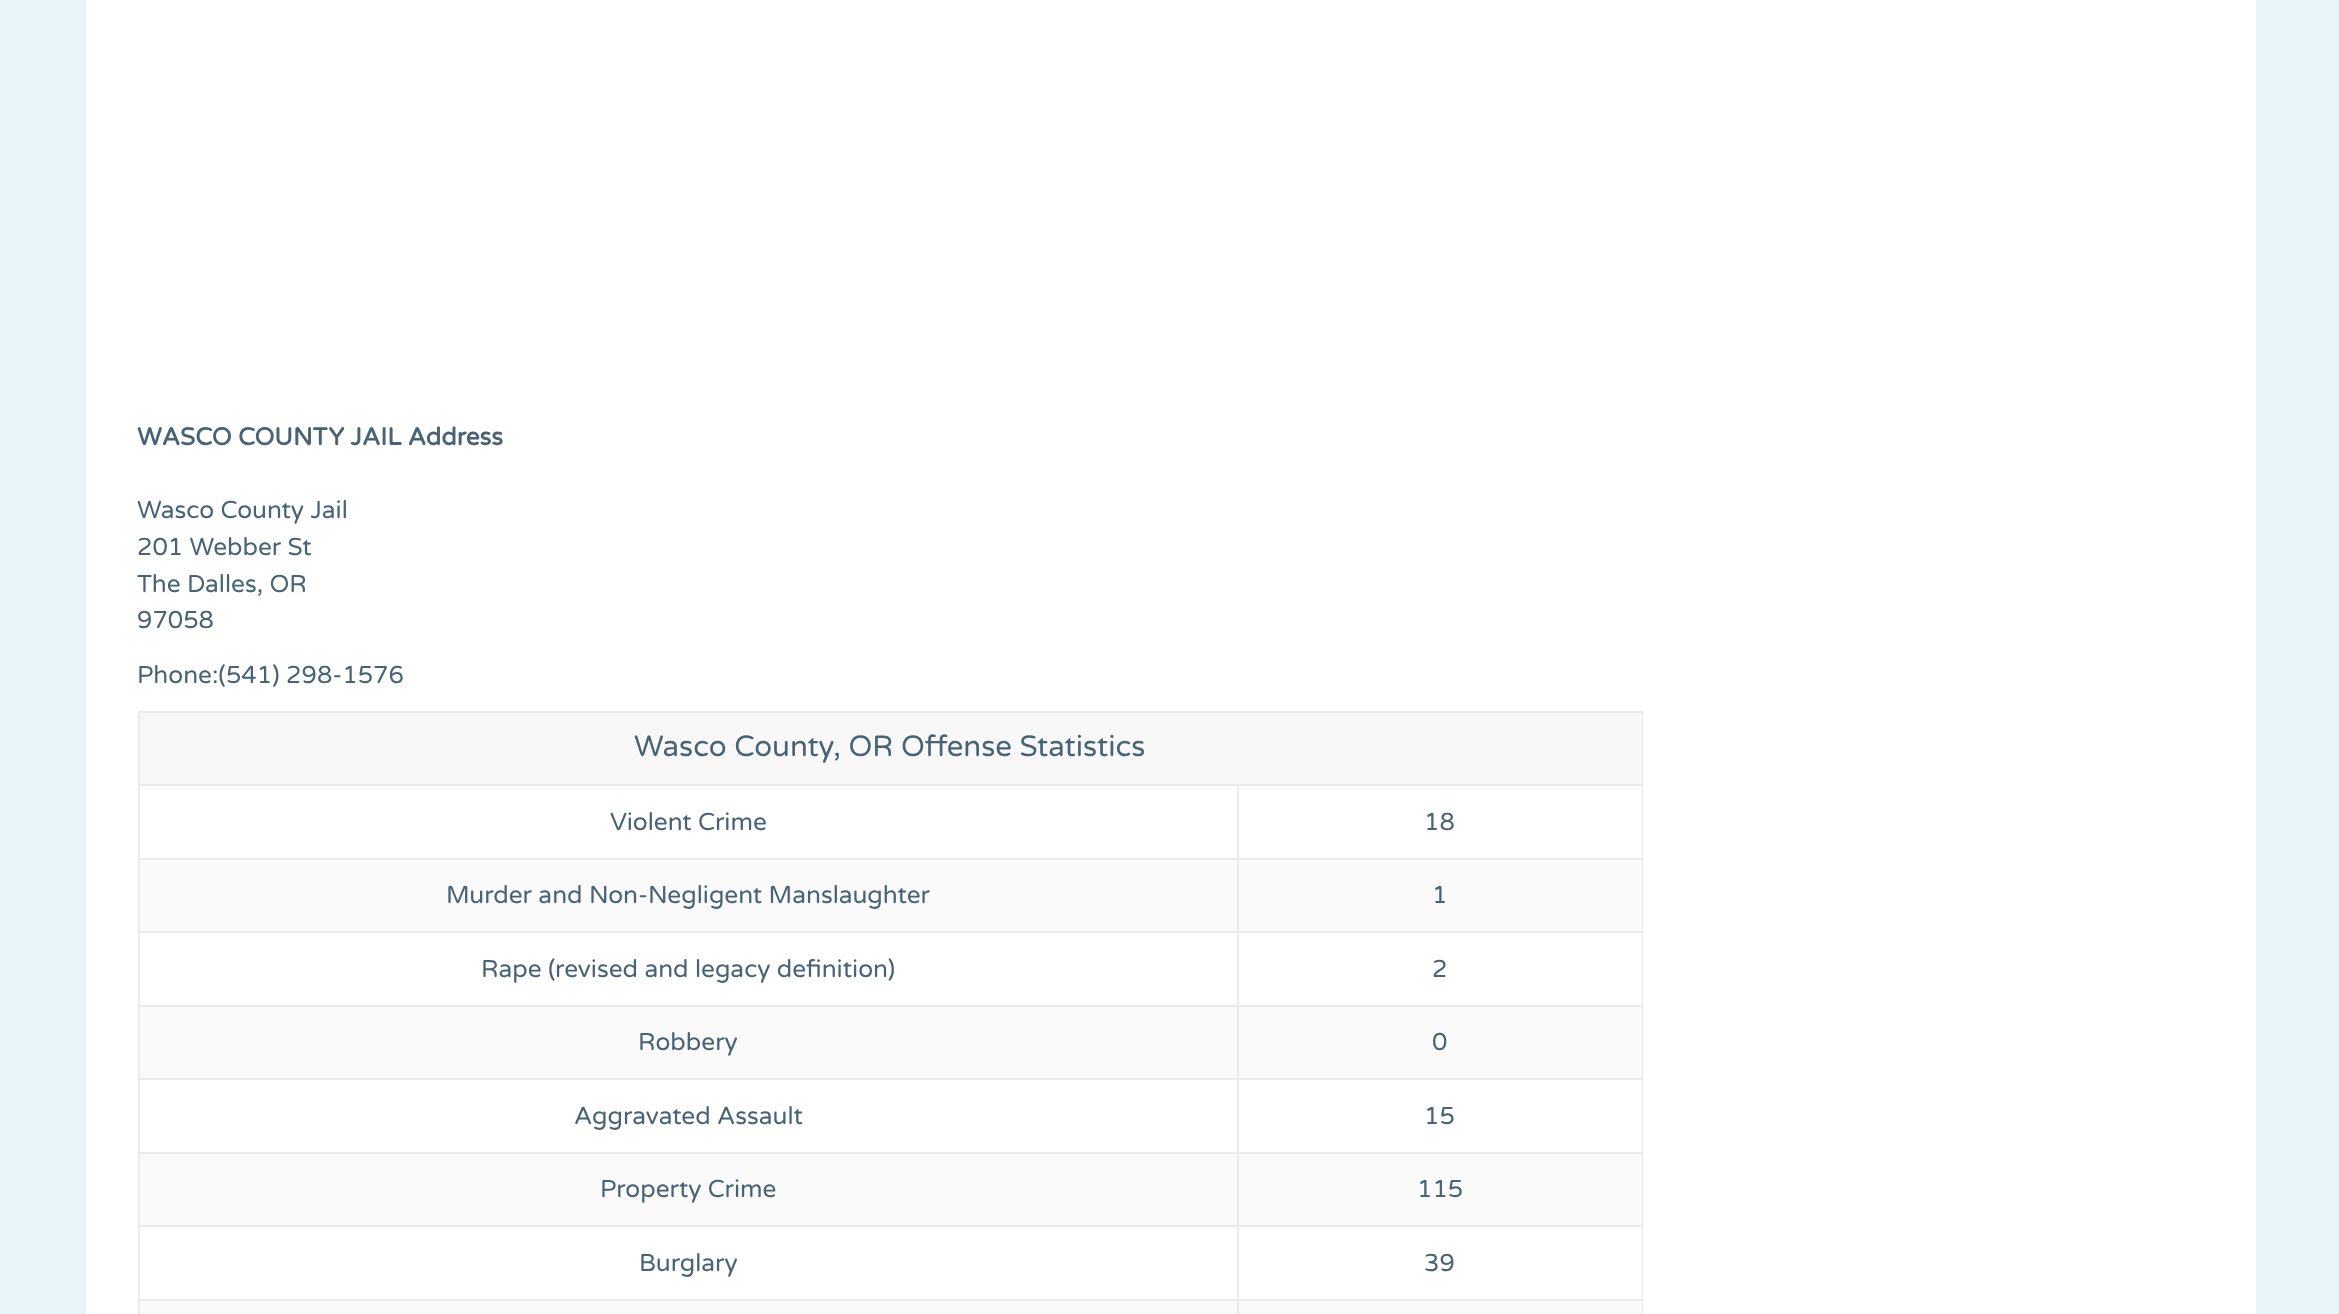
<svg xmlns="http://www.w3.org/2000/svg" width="2339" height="1314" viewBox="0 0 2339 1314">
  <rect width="100%" height="100%" fill="#e8f4f7"/>
  <path d="M86 0h2170v1314H86z" fill="#fff"/>
  <path d="M140 713h1502v71H140z" fill="#f8f8f8"/>
  <path d="M138 711h1505v2H138z" fill="#ebebeb"/>
  <path d="M1237 784h406v2H1237z" fill="#ebebeb"/>
  <path d="M1237 858h406v2H1237z" fill="#ebebeb"/>
  <path d="M1237 931h406v2H1237z" fill="#ebebeb"/>
  <path d="M1237 1005h406v2H1237z" fill="#ebebeb"/>
  <path d="M1237 1078h406v2H1237z" fill="#ebebeb"/>
  <path d="M1237 1152h406v2H1237z" fill="#ebebeb"/>
  <path d="M1237 1225h406v2H1237z" fill="#ebebeb"/>
  <path d="M1237 1299h406v2H1237z" fill="#ebebeb"/>
  <path d="M1642 1299h1v15H1642z" fill="#ebebeb"/>
  <path d="M1642 1225h1v75H1642z" fill="#ebebeb"/>
  <path d="M1642 1152h1v75H1642z" fill="#ebebeb"/>
  <path d="M1642 1078h1v75H1642z" fill="#ebebeb"/>
  <path d="M1642 1005h1v75H1642z" fill="#ebebeb"/>
  <path d="M1642 931h1v75H1642z" fill="#ebebeb"/>
  <path d="M1642 858h1v75H1642z" fill="#ebebeb"/>
  <path d="M1642 784h1v75H1642z" fill="#ebebeb"/>
  <path d="M1642 711h1v75H1642z" fill="#ebebeb"/>
  <path d="M1237 1299h2v15H1237z" fill="#ebebeb"/>
  <path d="M138 1299h1101v2H138z" fill="#ebebeb"/>
  <path d="M1237 1225h2v75H1237z" fill="#ebebeb"/>
  <path d="M138 1225h1101v2H138z" fill="#ebebeb"/>
  <path d="M1237 1152h2v75H1237z" fill="#ebebeb"/>
  <path d="M138 1152h1101v2H138z" fill="#ebebeb"/>
  <path d="M1237 1078h2v75H1237z" fill="#ebebeb"/>
  <path d="M138 1078h1101v2H138z" fill="#ebebeb"/>
  <path d="M1237 1005h2v75H1237z" fill="#ebebeb"/>
  <path d="M138 1005h1101v2H138z" fill="#ebebeb"/>
  <path d="M1237 931h2v75H1237z" fill="#ebebeb"/>
  <path d="M138 931h1101v2H138z" fill="#ebebeb"/>
  <path d="M1237 858h2v75H1237z" fill="#ebebeb"/>
  <path d="M138 858h1101v2H138z" fill="#ebebeb"/>
  <path d="M1237 784h2v75H1237z" fill="#ebebeb"/>
  <path d="M138 784h1101v2H138z" fill="#ebebeb"/>
  <path d="M138 1299h2v15H138z" fill="#ebebeb"/>
  <path d="M138 1225h2v75H138z" fill="#ebebeb"/>
  <path d="M138 1152h2v75H138z" fill="#ebebeb"/>
  <path d="M138 1078h2v75H138z" fill="#ebebeb"/>
  <path d="M138 1005h2v75H138z" fill="#ebebeb"/>
  <path d="M138 931h2v75H138z" fill="#ebebeb"/>
  <path d="M138 858h2v75H138z" fill="#ebebeb"/>
  <path d="M138 784h2v75H138z" fill="#ebebeb"/>
  <path d="M138 711h2v75H138z" fill="#ebebeb"/>
  <path d="M140 860h1097v71H140z" fill="#fafafa"/>
  <path d="M1239 860h403v71H1239z" fill="#fafafa"/>
  <path d="M140 1007h1097v71H140z" fill="#fafafa"/>
  <path d="M1239 1007h403v71H1239z" fill="#fafafa"/>
  <path d="M140 1154h1097v71H140z" fill="#fafafa"/>
  <path d="M1239 1154h403v71H1239z" fill="#fafafa"/>
  <path d="M140 1301h1097v13H140z" fill="#fafafa"/>
  <path d="M1239 1301h403v13H1239z" fill="#fafafa"/>
  <text x="137" y="445" font-family="Varela Round" font-size="24.5" font-weight="bold" fill="#486375">WASCO COUNTY JAIL Address</text>
  <g font-family="Varela Round" font-size="24.5" fill="#486375">
    <text x="137" y="518">Wasco County Jail</text>
    <text x="137" y="555">201 Webber St</text>
    <text x="137" y="592">The Dalles, OR</text>
    <text x="137" y="628">97058</text>
    <text x="137" y="683">Phone:(541) 298-1576</text>
  </g>
  <text x="634" y="756" font-family="Varela Round" font-size="29.4" fill="#486375">Wasco County, OR Offense Statistics</text>
  <g font-family="Varela Round" font-size="24.5" fill="#486375">
    <text x="610" y="830">Violent Crime</text>
    <text x="1424" y="830">18</text>
    <text x="446" y="903">Murder and Non-Negligent Manslaughter</text>
    <text x="1432" y="903">1</text>
    <text x="481" y="977">Rape (revised and legacy definition)</text>
    <text x="1432" y="977">2</text>
    <text x="638" y="1050">Robbery</text>
    <text x="1432" y="1050">0</text>
    <text x="574" y="1124">Aggravated Assault</text>
    <text x="1424" y="1124">15</text>
    <text x="600" y="1197">Property Crime</text>
    <text x="1417" y="1197">115</text>
    <text x="639" y="1271">Burglary</text>
    <text x="1424" y="1271">39</text>
  </g>
</svg>
